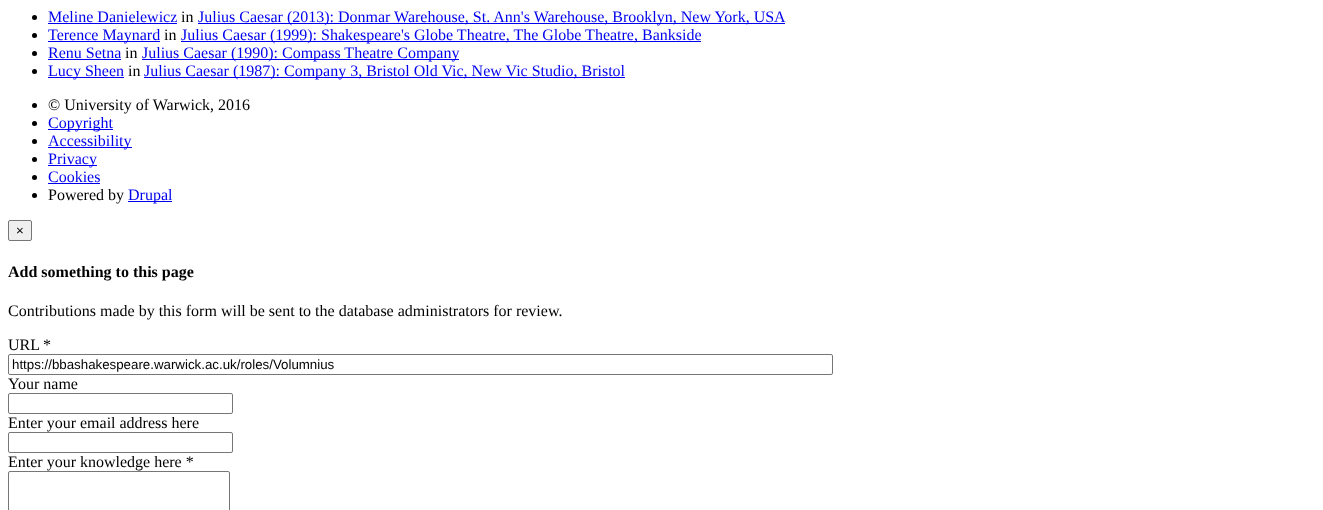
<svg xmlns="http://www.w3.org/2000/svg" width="1323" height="510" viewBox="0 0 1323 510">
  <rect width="100%" height="100%" fill="#fff"/>
  <circle cx="34.5" cy="17.5" r="2.5" fill="#000"/>
  <path d="M48 23h129v1H48z" fill="#00e"/>
  <path d="M198 23h587v1H198z" fill="#00e"/>
  <circle cx="34.5" cy="35.5" r="2.5" fill="#000"/>
  <path d="M48 41h112v1H48z" fill="#00e"/>
  <path d="M181 41h520v1H181z" fill="#00e"/>
  <circle cx="34.5" cy="53.5" r="2.5" fill="#000"/>
  <path d="M48 59h73v1H48z" fill="#00e"/>
  <path d="M142 59h317v1H142z" fill="#00e"/>
  <circle cx="34.5" cy="71.5" r="2.5" fill="#000"/>
  <path d="M48 77h76v1H48z" fill="#00e"/>
  <path d="M144 77h481v1H144z" fill="#00e"/>
  <circle cx="34.5" cy="105.5" r="2.5" fill="#000"/>
  <circle cx="34.5" cy="123.5" r="2.5" fill="#000"/>
  <path d="M48 129h65v1H48z" fill="#00e"/>
  <circle cx="34.5" cy="141.5" r="2.5" fill="#000"/>
  <path d="M48 147h84v1H48z" fill="#00e"/>
  <circle cx="34.5" cy="159.5" r="2.5" fill="#000"/>
  <path d="M48 165h49v1H48z" fill="#00e"/>
  <circle cx="34.5" cy="177.5" r="2.5" fill="#000"/>
  <path d="M48 183h52v1H48z" fill="#00e"/>
  <circle cx="34.5" cy="195.5" r="2.5" fill="#000"/>
  <path d="M128 201h44v1H128z" fill="#00e"/>
  <rect x="8.5" y="220.5" width="23" height="20" rx="1.5" fill="#efefef" stroke="#767676"/>
  <rect x="8.5" y="354.5" width="824" height="20" rx="1.5" fill="none" stroke="#767676"/>
  <rect x="8.5" y="393.5" width="224" height="20" rx="1.5" fill="none" stroke="#767676"/>
  <rect x="8.5" y="432.5" width="224" height="20" rx="1.5" fill="none" stroke="#767676"/>
  <rect x="8.5" y="471.5" width="221" height="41" rx="1.5" fill="none" stroke="#767676"/>
  <text x="48" y="22" font-family="Liberation Serif" font-size="16" fill="#00e">Meline Danielewicz</text>
  <text x="181" y="22" font-family="Liberation Serif" font-size="16" fill="#000">in</text>
  <g font-family="Liberation Serif" font-size="16" fill="#00e">
    <text x="198" y="22">Julius Caesar (2013): Donmar Warehouse, St. Ann's Warehouse, Brooklyn, New York, USA</text>
    <text x="48" y="40">Terence Maynard</text>
  </g>
  <text x="164" y="40" font-family="Liberation Serif" font-size="16" fill="#000">in</text>
  <g font-family="Liberation Serif" font-size="16" fill="#00e">
    <text x="181" y="40">Julius Caesar (1999): Shakespeare's Globe Theatre, The Globe Theatre, Bankside</text>
    <text x="48" y="58">Renu Setna</text>
  </g>
  <text x="125" y="58" font-family="Liberation Serif" font-size="16" fill="#000">in</text>
  <g font-family="Liberation Serif" font-size="16" fill="#00e">
    <text x="142" y="58">Julius Caesar (1990): Compass Theatre Company</text>
    <text x="48" y="76">Lucy Sheen</text>
  </g>
  <text x="128" y="76" font-family="Liberation Serif" font-size="16" fill="#000">in</text>
  <text x="144" y="76" font-family="Liberation Serif" font-size="16" fill="#00e">Julius Caesar (1987): Company 3, Bristol Old Vic, New Vic Studio, Bristol</text>
  <text x="48" y="110" font-family="Liberation Serif" font-size="16" fill="#000">© University of Warwick, 2016</text>
  <g font-family="Liberation Serif" font-size="16" fill="#00e">
    <text x="48" y="128">Copyright</text>
    <text x="48" y="146">Accessibility</text>
    <text x="48" y="164">Privacy</text>
    <text x="48" y="182">Cookies</text>
  </g>
  <text x="48" y="200" font-family="Liberation Serif" font-size="16" fill="#000">Powered by</text>
  <text x="128" y="200" font-family="Liberation Serif" font-size="16" fill="#00e">Drupal</text>
  <text x="16" y="235" font-family="Liberation Sans" font-size="13.3" fill="#000">×</text>
  <text x="8" y="277" font-family="Liberation Serif" font-size="16" font-weight="bold" fill="#000">Add something to this page</text>
  <g font-family="Liberation Serif" font-size="16" fill="#000">
    <text x="8" y="316">Contributions made by this form will be sent to the database administrators for review.</text>
    <text x="8" y="350">URL</text>
    <text x="43" y="350">*</text>
  </g>
  <text x="12" y="369" font-family="Liberation Sans" font-size="13.3" fill="#000">https://bbashakespeare.warwick.ac.uk/roles/Volumnius</text>
  <g font-family="Liberation Serif" font-size="16" fill="#000">
    <text x="8" y="389">Your name</text>
    <text x="8" y="428">Enter your email address here</text>
    <text x="8" y="467">Enter your knowledge here *</text>
  </g>
</svg>
